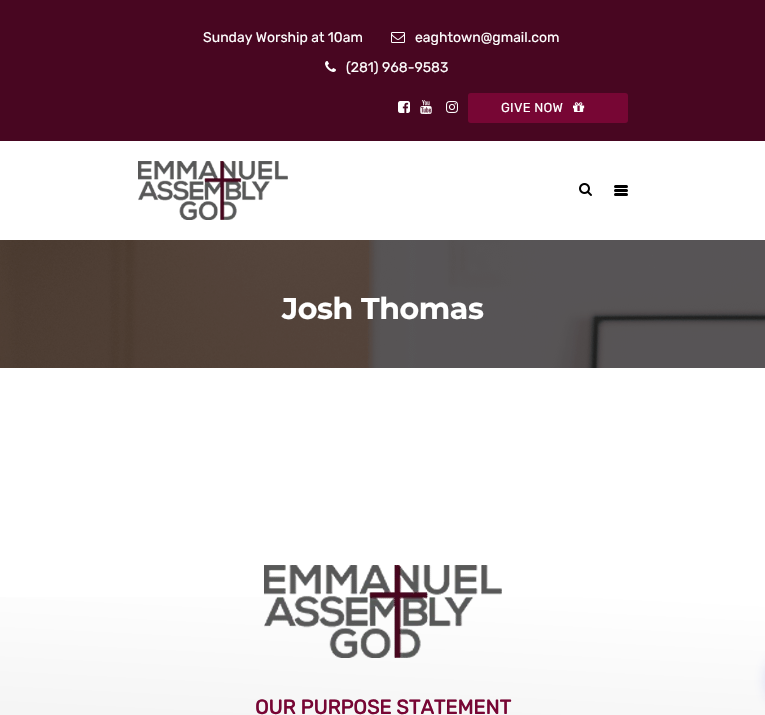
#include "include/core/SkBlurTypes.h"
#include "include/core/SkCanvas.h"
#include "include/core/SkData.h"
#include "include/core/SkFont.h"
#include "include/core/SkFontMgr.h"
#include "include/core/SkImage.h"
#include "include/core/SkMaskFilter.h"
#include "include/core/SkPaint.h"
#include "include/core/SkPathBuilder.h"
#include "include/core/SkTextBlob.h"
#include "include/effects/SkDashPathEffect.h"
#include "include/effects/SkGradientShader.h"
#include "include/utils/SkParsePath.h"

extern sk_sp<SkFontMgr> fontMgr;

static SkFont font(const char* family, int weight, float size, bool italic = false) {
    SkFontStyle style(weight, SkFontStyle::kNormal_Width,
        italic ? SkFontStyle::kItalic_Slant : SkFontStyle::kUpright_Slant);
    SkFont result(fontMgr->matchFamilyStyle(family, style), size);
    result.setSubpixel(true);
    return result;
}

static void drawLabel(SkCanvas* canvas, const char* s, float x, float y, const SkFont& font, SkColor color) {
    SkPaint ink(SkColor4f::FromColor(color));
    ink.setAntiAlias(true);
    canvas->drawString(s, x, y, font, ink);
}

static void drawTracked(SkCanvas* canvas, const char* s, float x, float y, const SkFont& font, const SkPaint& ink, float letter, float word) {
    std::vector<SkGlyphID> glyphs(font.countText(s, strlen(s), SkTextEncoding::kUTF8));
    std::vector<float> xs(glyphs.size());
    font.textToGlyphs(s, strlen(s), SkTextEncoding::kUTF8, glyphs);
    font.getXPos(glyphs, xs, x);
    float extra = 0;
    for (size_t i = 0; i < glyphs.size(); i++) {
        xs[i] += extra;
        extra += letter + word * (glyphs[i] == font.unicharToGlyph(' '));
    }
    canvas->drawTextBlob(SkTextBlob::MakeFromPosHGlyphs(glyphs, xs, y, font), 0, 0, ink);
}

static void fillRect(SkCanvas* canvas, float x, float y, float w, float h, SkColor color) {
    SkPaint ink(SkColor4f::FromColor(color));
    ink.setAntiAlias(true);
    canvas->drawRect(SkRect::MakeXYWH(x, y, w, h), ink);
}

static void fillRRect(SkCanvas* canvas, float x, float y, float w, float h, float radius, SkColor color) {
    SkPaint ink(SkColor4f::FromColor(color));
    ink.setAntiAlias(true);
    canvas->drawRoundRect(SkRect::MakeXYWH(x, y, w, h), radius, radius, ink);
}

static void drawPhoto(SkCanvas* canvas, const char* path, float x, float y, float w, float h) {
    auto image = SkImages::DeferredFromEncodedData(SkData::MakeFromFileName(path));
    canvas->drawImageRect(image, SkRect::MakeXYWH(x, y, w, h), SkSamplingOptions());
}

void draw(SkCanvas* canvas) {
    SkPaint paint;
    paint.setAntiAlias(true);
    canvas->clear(0xFFFFFFFF);
    fillRect(canvas, 0, 0, 765, 141, 0xFF480621);
    SkFont font1 = font("Rubik", 300, 14);
    drawLabel(canvas, "Sunday Worship at 10am", 203, 42, font1, 0xFFFFFFFF);
    drawPhoto(canvas, "assets/img1.png", 391, 32, 14, 11);
    drawLabel(canvas, "eaghtown@gmail.com", 415, 42, font1, 0xFFFFFFFF);
    drawPhoto(canvas, "assets/img2.png", 325, 61, 11, 11);
    drawLabel(canvas, "(281) 968-9583", 346, 72, font1, 0xFFFFFFFF);
    drawPhoto(canvas, "assets/img3.png", 398, 101, 12, 12);
    drawPhoto(canvas, "assets/img4.png", 420, 100, 12, 14);
    drawPhoto(canvas, "assets/img5.png", 446, 101, 12, 12);
    fillRRect(canvas, 468, 93, 160, 30, 3, 0xFF770634);
    SkFont font2 = font("Rubik", 300, 13);
    paint.setColor(0xFFFFFFFF);
    drawTracked(canvas, "GIVE NOW", 501, 112, font2, paint, 0.25f, 0);
    drawPhoto(canvas, "assets/img6.png", 573, 102, 12, 10);
    drawPhoto(canvas, "assets/img7.png", 138, 161, 150, 59);
    drawPhoto(canvas, "assets/img8.png", 579, 183, 13, 13);
    fillRRect(canvas, 614, 189, 14, 3, 1.5f, 0xFF000000);
    fillRRect(canvas, 614, 185, 14, 3, 1.5f, 0xFF000000);
    fillRRect(canvas, 614, 193, 14, 3, 1.5f, 0xFF000000);
    drawPhoto(canvas, "assets/img9.png", 0, 240, 765, 128);
    SkFont font3 = font("Montserrat", 700, 30);
    drawTracked(canvas, "Josh Thomas", 282, 319, font3, paint, -0.4f, 0);
    {
        const SkColor colors[] = {0xFFD8D8D8, 0xFFFFFFFF};
        const float stops[] = {0, 0.84f};
        const SkPoint ends[] = {{365, 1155}, {400, 471}};
        paint.setShader(SkGradientShader::MakeLinear(ends, colors, stops, 2, SkTileMode::kClamp));
        paint.setAlpha(255);
    }
    canvas->drawRect(SkRect::MakeXYWH(0, 597, 765, 118), paint);
    drawPhoto(canvas, "assets/img10.png", 264, 565, 238, 93);
    SkFont font4 = font("Rubik", 700, 20);
    drawLabel(canvas, "OUR PURPOSE STATEMENT", 255, 714, font4, 0xFF770634);
    paint.setShader(nullptr);
    paint.setColor(0xE66B74E6);
    paint.setMaskFilter(SkMaskFilter::MakeBlur(kNormal_SkBlurStyle, 10));
    canvas->drawRoundRect(SkRect::MakeXYWH(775, 660, 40, 40), 20, 20, paint);
    paint.setMaskFilter(nullptr);
}
